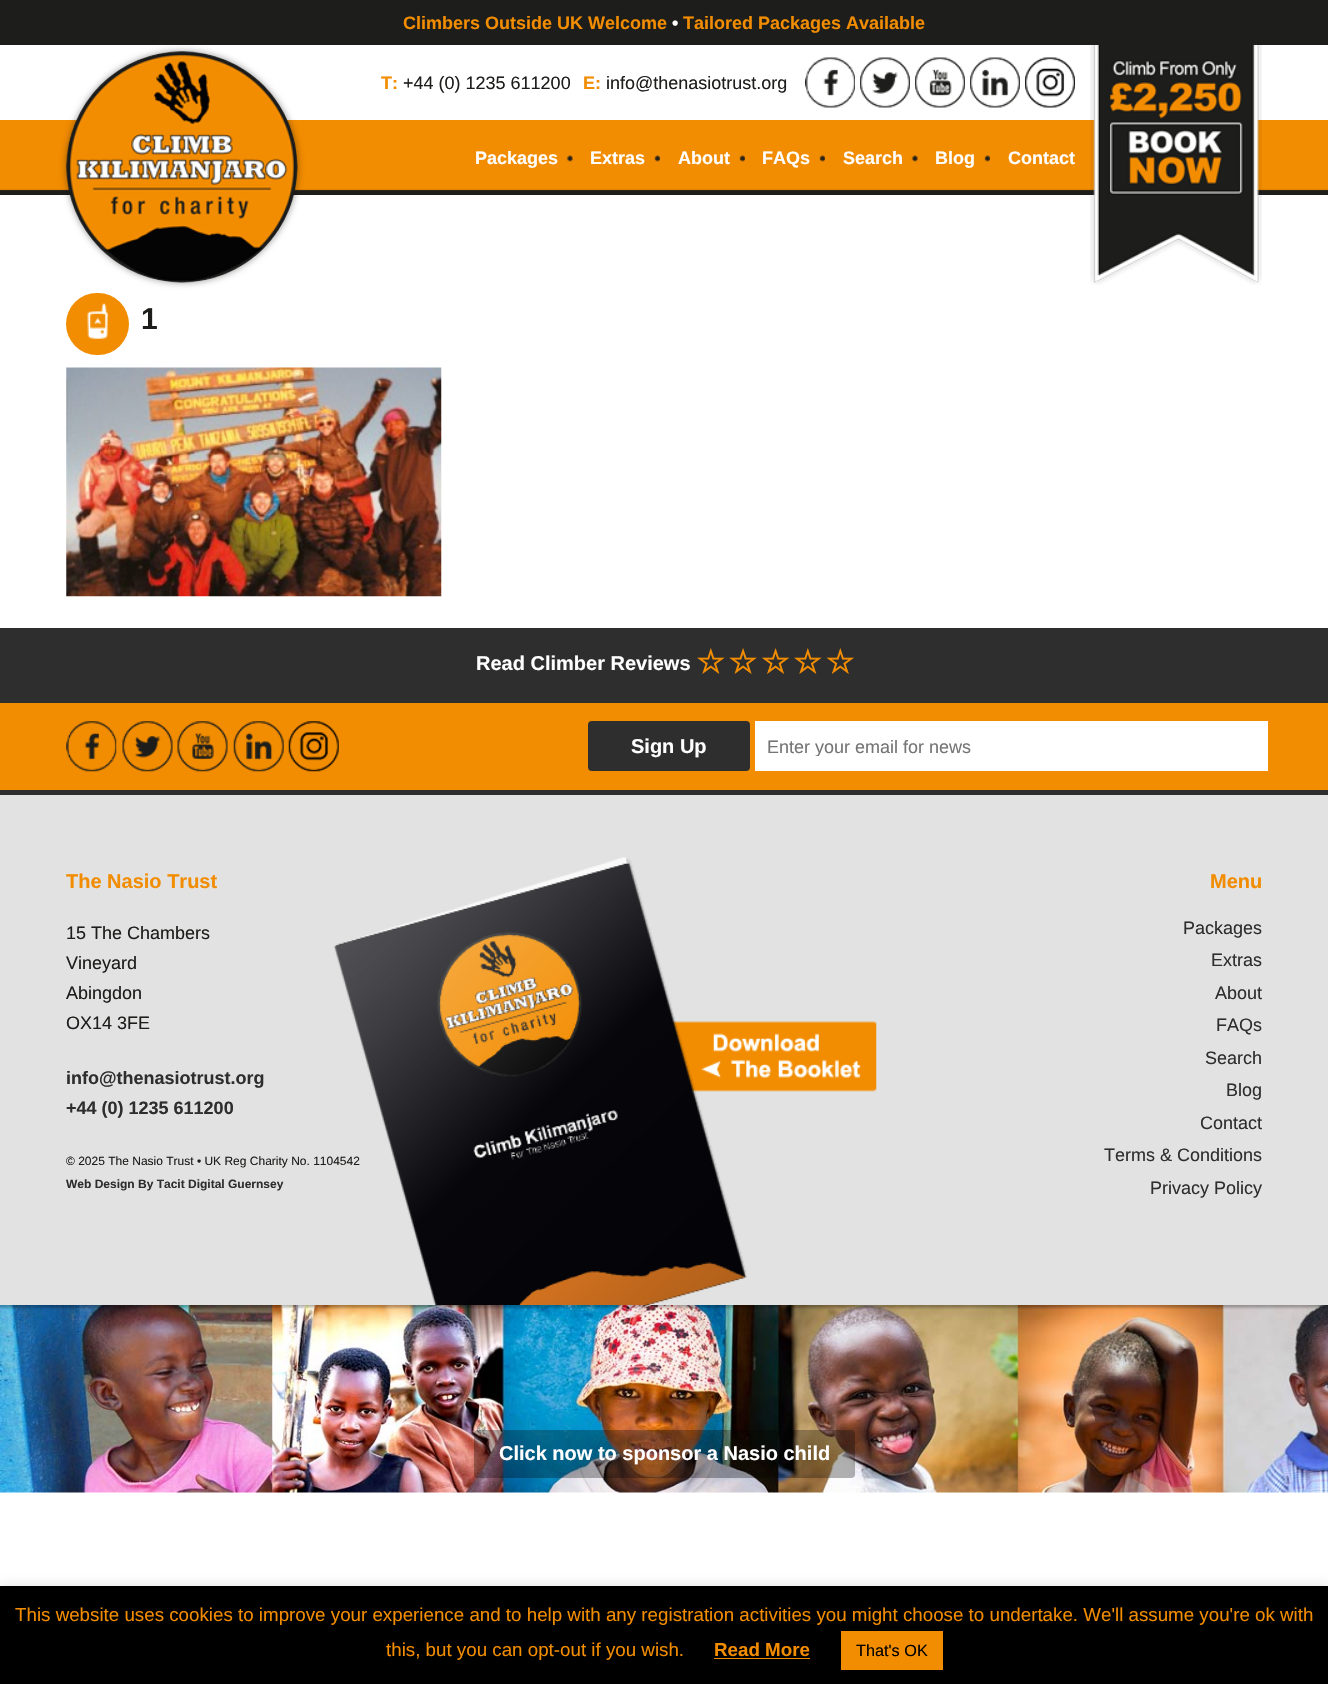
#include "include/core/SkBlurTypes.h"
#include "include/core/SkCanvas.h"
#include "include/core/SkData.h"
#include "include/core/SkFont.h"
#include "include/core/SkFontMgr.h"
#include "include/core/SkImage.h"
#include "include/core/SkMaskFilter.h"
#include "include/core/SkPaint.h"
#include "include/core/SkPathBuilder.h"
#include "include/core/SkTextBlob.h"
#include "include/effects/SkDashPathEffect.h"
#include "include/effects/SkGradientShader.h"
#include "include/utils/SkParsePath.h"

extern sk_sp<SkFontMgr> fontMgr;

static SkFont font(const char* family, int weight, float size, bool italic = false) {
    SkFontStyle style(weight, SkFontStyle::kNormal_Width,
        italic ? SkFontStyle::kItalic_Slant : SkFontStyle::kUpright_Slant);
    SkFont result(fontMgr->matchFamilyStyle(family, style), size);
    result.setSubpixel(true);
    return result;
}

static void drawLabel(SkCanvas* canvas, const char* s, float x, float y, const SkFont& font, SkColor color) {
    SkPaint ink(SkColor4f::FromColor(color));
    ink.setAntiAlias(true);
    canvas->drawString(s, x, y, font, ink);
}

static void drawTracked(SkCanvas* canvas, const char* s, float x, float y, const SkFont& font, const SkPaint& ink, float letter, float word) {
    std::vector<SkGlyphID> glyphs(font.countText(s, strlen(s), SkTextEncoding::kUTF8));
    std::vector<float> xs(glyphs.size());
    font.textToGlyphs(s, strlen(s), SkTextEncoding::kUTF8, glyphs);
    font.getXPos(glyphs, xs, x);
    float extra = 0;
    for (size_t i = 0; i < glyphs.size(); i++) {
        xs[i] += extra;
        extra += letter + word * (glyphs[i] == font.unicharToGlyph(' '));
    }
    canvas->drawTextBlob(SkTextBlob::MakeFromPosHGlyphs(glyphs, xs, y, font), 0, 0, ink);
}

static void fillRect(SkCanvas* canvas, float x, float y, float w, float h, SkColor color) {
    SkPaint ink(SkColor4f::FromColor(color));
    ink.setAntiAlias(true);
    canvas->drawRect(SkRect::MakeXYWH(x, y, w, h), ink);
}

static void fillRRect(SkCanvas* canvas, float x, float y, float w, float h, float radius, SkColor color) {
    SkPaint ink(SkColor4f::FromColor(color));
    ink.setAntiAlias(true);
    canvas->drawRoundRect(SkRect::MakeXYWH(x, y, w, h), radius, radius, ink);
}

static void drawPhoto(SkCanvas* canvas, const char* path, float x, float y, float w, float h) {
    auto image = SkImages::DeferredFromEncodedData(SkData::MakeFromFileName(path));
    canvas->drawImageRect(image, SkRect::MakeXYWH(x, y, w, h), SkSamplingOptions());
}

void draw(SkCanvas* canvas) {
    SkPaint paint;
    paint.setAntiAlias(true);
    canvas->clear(0xFFFFFFFF);
    fillRect(canvas, 0, 0, 1328, 45, 0xFF1D1D1B);
    SkFont font1 = font("Liberation Sans", 700, 18);
    drawLabel(canvas, "Climbers Outside UK Welcome", 403, 29, font1, 0xFFF28C00);
    drawLabel(canvas, "•", 672, 29, font1, 0xFFFFFFFF);
    drawLabel(canvas, "Tailored Packages Available", 683, 29, font1, 0xFFF28C00);
    drawPhoto(canvas, "assets/img1.png", 0, 120, 1328, 75);
    paint.setColor(0x59000000);
    paint.setMaskFilter(SkMaskFilter::MakeBlur(kNormal_SkBlurStyle, 3));
    canvas->drawRoundRect(SkRect::MakeXYWH(66, 51, 232, 232), 116, 116, paint);
    paint.setMaskFilter(nullptr);
    drawPhoto(canvas, "assets/img2.png", 66, 51, 232, 232);
    drawLabel(canvas, "T:", 381, 89, font1, 0xFFF28C00);
    SkFont font2 = font("Liberation Sans", 400, 18);
    drawLabel(canvas, "+44 (0) 1235 611200", 403, 89, font2, 0xFF1D1D1B);
    drawLabel(canvas, "E:", 583, 89, font1, 0xFFF28C00);
    drawLabel(canvas, "info@thenasiotrust.org", 606, 89, font2, 0xFF1D1D1B);
    drawPhoto(canvas, "assets/img3.png", 805, 57, 50, 51);
    drawPhoto(canvas, "assets/img4.png", 860, 57, 50, 51);
    drawPhoto(canvas, "assets/img5.png", 915, 57, 50, 51);
    drawPhoto(canvas, "assets/img6.png", 970, 57, 50, 51);
    drawPhoto(canvas, "assets/img7.png", 1025, 57, 50, 51);
    drawPhoto(canvas, "assets/img8.png", 1090, 45, 172, 240);
    drawPhoto(canvas, "assets/img9.png", 566, 155, 7, 7);
    drawLabel(canvas, "Packages", 475, 164, font1, 0xFFFFFFFF);
    drawPhoto(canvas, "assets/img10.png", 654, 155, 6, 7);
    drawLabel(canvas, "Extras", 590, 164, font1, 0xFFFFFFFF);
    drawPhoto(canvas, "assets/img10.png", 739, 155, 6, 7);
    drawLabel(canvas, "About", 678, 164, font1, 0xFFFFFFFF);
    drawPhoto(canvas, "assets/img10.png", 819, 155, 6, 7);
    drawLabel(canvas, "FAQs", 762, 164, font1, 0xFFFFFFFF);
    drawPhoto(canvas, "assets/img9.png", 911, 155, 7, 7);
    drawLabel(canvas, "Search", 843, 164, font1, 0xFFFFFFFF);
    drawPhoto(canvas, "assets/img10.png", 984, 155, 6, 7);
    drawLabel(canvas, "Blog", 935, 164, font1, 0xFFFFFFFF);
    drawLabel(canvas, "Contact", 1008, 164, font1, 0xFFFFFFFF);
    fillRRect(canvas, 66, 293, 63, 62, 31, 0xFFF28C00);
    drawPhoto(canvas, "assets/img11.png", 87, 303, 22, 36);
    SkFont font3 = font("Liberation Sans", 700, 30);
    drawLabel(canvas, "1", 141, 329, font3, 0xFF1D1D1B);
    drawPhoto(canvas, "assets/img12.png", 66, 367, 376, 230);
    fillRect(canvas, 0, 628, 1328, 75, 0xFF2E2E2E);
    SkFont font4 = font("Liberation Sans", 700, 20);
    drawLabel(canvas, "Read Climber Reviews", 476, 670, font4, 0xFFFFFFFF);
    SkFont font5 = font("DejaVu Sans", 700, 32);
    paint.setColor(0xFFF28C00);
    drawTracked(canvas, "☆ ☆ ☆ ☆ ☆", 696, 673, font5, paint, -2.5f, -1.5f);
    fillRect(canvas, 0, 703, 1328, 87, 0xFFF28C00);
    fillRect(canvas, 0, 790, 1328, 5, 0xFF2E2E2E);
    drawPhoto(canvas, "assets/img13.png", 66, 721, 51, 51);
    drawPhoto(canvas, "assets/img14.png", 122, 721, 51, 51);
    drawPhoto(canvas, "assets/img15.png", 177, 721, 51, 51);
    drawPhoto(canvas, "assets/img16.png", 233, 721, 51, 51);
    drawPhoto(canvas, "assets/img17.png", 288, 721, 51, 51);
    fillRRect(canvas, 588, 721, 162, 50, 4, 0xFF2E2E2E);
    drawLabel(canvas, "Sign Up", 631, 753, font4, 0xFFFFFFFF);
    fillRect(canvas, 755, 721, 513, 50, 0xFFFFFFFF);
    canvas->save();
    canvas->clipRect(SkRect::MakeXYWH(768, 736, 500, 20));
    drawLabel(canvas, "Enter your email for news", 767, 753, font2, 0xFF757575);
    canvas->restore();
    fillRect(canvas, 0, 795, 1328, 510, 0xFFE2E2E2);
    drawLabel(canvas, "The Nasio Trust", 66, 888, font4, 0xFFF28C00);
    drawLabel(canvas, "15 The Chambers", 66, 939, font2, 0xFF1D1D1B);
    drawLabel(canvas, "Vineyard", 66, 969, font2, 0xFF1D1D1B);
    drawLabel(canvas, "Abingdon", 66, 999, font2, 0xFF1D1D1B);
    drawLabel(canvas, "OX14 3FE", 66, 1029, font2, 0xFF1D1D1B);
    drawLabel(canvas, "info@thenasiotrust.org", 66, 1084, font1, 0xFF2E2E2E);
    drawLabel(canvas, "+44 (0) 1235 611200", 66, 1114, font1, 0xFF2E2E2E);
    SkFont font6 = font("Liberation Sans", 400, 12);
    drawLabel(canvas, "© 2025 The Nasio Trust • UK Reg Charity No. 1104542", 66, 1165, font6, 0xFF1D1D1B);
    SkFont font7 = font("Liberation Sans", 700, 12);
    drawLabel(canvas, "Web Design By Tacit Digital Guernsey", 66, 1188, font7, 0xFF2E2E2E);
    drawPhoto(canvas, "assets/img18.png", 333, 856, 544, 449);
    drawLabel(canvas, "Menu", 1210, 888, font4, 0xFFF28C00);
    drawLabel(canvas, "Packages", 1183, 934, font2, 0xFF2E2E2E);
    drawLabel(canvas, "Extras", 1211, 966, font2, 0xFF2E2E2E);
    drawLabel(canvas, "About", 1215, 999, font2, 0xFF2E2E2E);
    drawLabel(canvas, "FAQs", 1216, 1031, font2, 0xFF2E2E2E);
    drawLabel(canvas, "Search", 1205, 1064, font2, 0xFF2E2E2E);
    drawLabel(canvas, "Blog", 1226, 1096, font2, 0xFF2E2E2E);
    drawLabel(canvas, "Contact", 1200, 1129, font2, 0xFF2E2E2E);
    drawLabel(canvas, "Terms & Conditions", 1104, 1161, font2, 0xFF2E2E2E);
    drawLabel(canvas, "Privacy Policy", 1150, 1194, font2, 0xFF2E2E2E);
    drawPhoto(canvas, "assets/img19.png", 0, 1305, 1328, 188);
    fillRRect(canvas, 474, 1430, 381, 48, 4, 0x4D000000);
    drawLabel(canvas, "Click now to sponsor a Nasio child", 499, 1460, font4, 0xFFFFFFFF);
    paint.setColor(0x4DACABAB);
    paint.setMaskFilter(SkMaskFilter::MakeBlur(kNormal_SkBlurStyle, 6));
    canvas->drawRect(SkRect::MakeXYWH(0, 1585, 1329, 99), paint);
    paint.setMaskFilter(nullptr);
    fillRect(canvas, 0, 1586, 1328, 98, 0xFF000000);
    SkFont font8 = font("Liberation Sans", 400, 18.75f);
    drawLabel(canvas, "This website uses cookies to improve your experience and to help with any registration activities you might choose to undertake. We'll assume you're ok with", 15, 1621, font8, 0xFFF28C00);
    drawLabel(canvas, "this, but you can opt-out if you wish.", 386, 1656, font8, 0xFFF28C00);
    SkFont font9 = font("Liberation Sans", 700, 18.75f);
    drawLabel(canvas, "Read More", 714, 1656, font9, 0xFFF28C00);
    fillRect(canvas, 714, 1658, 96, 1, 0xFFF28C00);
    fillRect(canvas, 841, 1631, 102, 39, 0xFFF28C00);
    SkFont font10 = font("Liberation Sans", 400, 16.25f);
    drawLabel(canvas, "That's OK", 856, 1656, font10, 0xFF000000);
}
